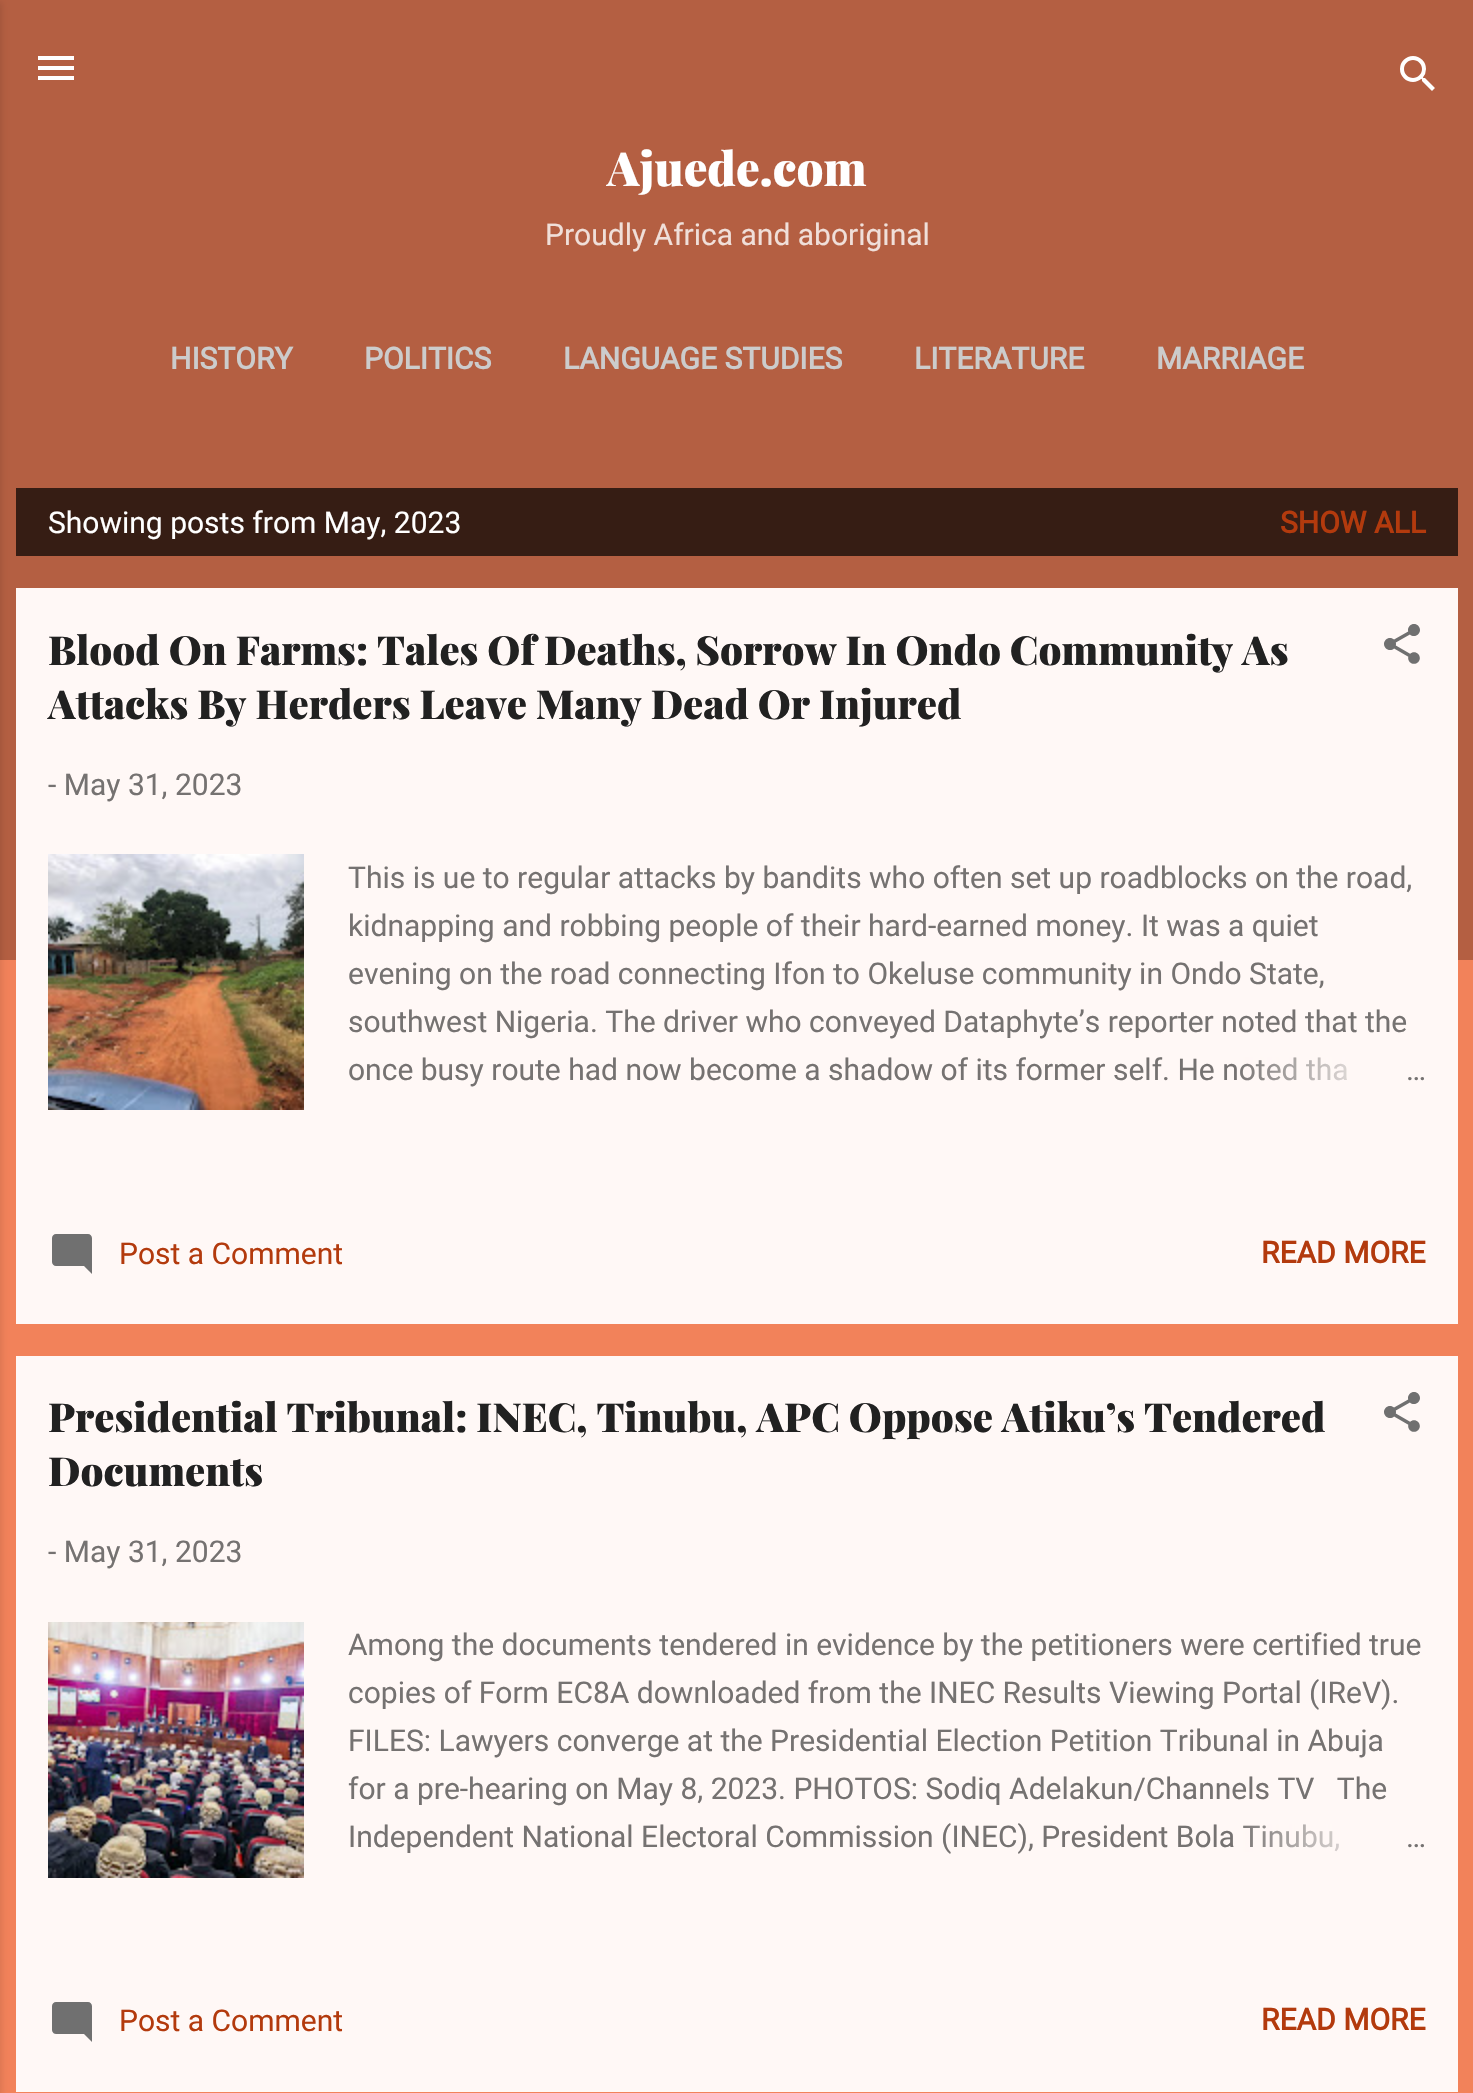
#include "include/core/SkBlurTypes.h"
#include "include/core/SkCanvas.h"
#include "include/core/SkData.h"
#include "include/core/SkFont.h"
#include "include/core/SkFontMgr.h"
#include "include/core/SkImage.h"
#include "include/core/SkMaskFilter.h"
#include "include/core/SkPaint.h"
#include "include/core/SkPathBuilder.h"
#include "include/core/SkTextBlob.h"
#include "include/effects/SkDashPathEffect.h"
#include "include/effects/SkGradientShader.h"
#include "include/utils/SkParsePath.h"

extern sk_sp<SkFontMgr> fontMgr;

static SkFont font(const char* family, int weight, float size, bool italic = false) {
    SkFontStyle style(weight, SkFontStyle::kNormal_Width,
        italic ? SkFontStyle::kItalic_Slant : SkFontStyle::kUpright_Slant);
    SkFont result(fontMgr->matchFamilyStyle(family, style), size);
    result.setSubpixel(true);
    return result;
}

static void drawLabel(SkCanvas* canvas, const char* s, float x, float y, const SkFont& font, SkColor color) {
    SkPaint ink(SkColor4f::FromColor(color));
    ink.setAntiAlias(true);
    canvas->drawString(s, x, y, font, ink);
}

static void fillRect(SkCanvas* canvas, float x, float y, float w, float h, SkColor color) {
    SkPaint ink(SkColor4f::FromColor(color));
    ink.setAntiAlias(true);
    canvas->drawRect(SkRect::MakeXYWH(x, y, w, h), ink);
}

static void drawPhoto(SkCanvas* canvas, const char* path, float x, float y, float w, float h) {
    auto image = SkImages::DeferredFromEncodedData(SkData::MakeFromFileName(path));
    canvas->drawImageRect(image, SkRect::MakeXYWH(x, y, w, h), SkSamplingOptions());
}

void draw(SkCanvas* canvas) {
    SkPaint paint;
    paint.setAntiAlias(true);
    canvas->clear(0xFFF2825A);
    fillRect(canvas, 0, 0, 1473, 960, 0xFFB45F42);
    paint.setColor(0x1A000000);
    paint.setMaskFilter(SkMaskFilter::MakeBlur(kNormal_SkBlurStyle, 3));
    canvas->drawRect(SkRect::MakeXYWH(-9, 2, 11, 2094), paint);
    paint.setMaskFilter(nullptr);
    drawPhoto(canvas, "assets/img1.png", 38, 56, 36, 24);
    drawPhoto(canvas, "assets/img2.png", 1400, 56, 35, 35);
    SkFont font1 = font("Playfair Display", 900, 47);
    drawLabel(canvas, "Ajuede.com", 607, 186, font1, 0xFFFFFFFF);
    SkFont font2 = font("Roboto", 400, 30);
    drawLabel(canvas, "Proudly Africa and aboriginal", 545, 245, font2, 0xFFF0DFD9);
    SkFont font3 = font("Roboto", 700, 30);
    drawLabel(canvas, "HISTORY", 170, 369, font3, 0xFFCCCCCC);
    drawLabel(canvas, "POLITICS", 364, 369, font3, 0xFFCCCCCC);
    drawLabel(canvas, "LANGUAGE STUDIES", 563, 369, font3, 0xFFCCCCCC);
    drawLabel(canvas, "LITERATURE", 914, 369, font3, 0xFFCCCCCC);
    drawLabel(canvas, "MARRIAGE", 1156, 369, font3, 0xFFCCCCCC);
    fillRect(canvas, 16, 488, 1442, 68, 0xFF361D14);
    drawLabel(canvas, "Showing posts from May, 2023", 48, 533, font2, 0xFFFFFFFF);
    drawLabel(canvas, "SHOW ALL", 1280, 533, font3, 0xFFB33A0D);
    fillRect(canvas, 16, 588, 1442, 736, 0xFFFFF8F6);
    SkFont font4 = font("Playfair Display", 900, 40);
    drawLabel(canvas, "Blood On Farms: Tales Of Deaths, Sorrow In Ondo Community As", 48, 665, font4, 0xFF212121);
    drawLabel(canvas, "Attacks By Herders Leave Many Dead Or Injured", 48, 719, font4, 0xFF212121);
    drawPhoto(canvas, "assets/img3.png", 1384, 624, 36, 40);
    drawLabel(canvas, "- May 31, 2023", 48, 795, font2, 0xFF757271);
    drawPhoto(canvas, "assets/img4.png", 48, 854, 256, 256);
    drawLabel(canvas, "This is ue to regular attacks by bandits who often set up roadblocks on the road,", 348, 888, font2, 0xFF757271);
    drawLabel(canvas, "kidnapping and robbing people of their hard-earned money. It was a quiet", 348, 936, font2, 0xFF757271);
    drawLabel(canvas, "evening on the road connecting Ifon to Okeluse community in Ondo State,", 348, 984, font2, 0xFF757271);
    drawLabel(canvas, "southwest Nigeria. The driver who conveyed Dataphyte’s reporter noted that the", 348, 1032, font2, 0xFF757271);
    drawLabel(canvas, "once busy route had now become a shadow of its former self. He noted tha", 348, 1080, font2, 0xFF757271);
    {
        const SkColor colors[] = {0xFFFFF8F6, 0xFFFFF8F6, 0x00FFF8F6};
        const float stops[] = {0, 0.2f, 1};
        const SkPoint ends[] = {{1426, 1070}, {1234, 1070}};
        paint.setShader(SkGradientShader::MakeLinear(ends, colors, stops, 3, SkTileMode::kClamp));
        paint.setAlpha(255);
    }
    canvas->drawRect(SkRect::MakeXYWH(1240, 1057, 108, 24), paint);
    drawLabel(canvas, "…", 1406, 1080, font2, 0xFF757271);
    drawPhoto(canvas, "assets/img5.png", 52, 1234, 40, 40);
    drawLabel(canvas, "Post a Comment", 119, 1264, font2, 0xFFB33A0D);
    drawLabel(canvas, "READ MORE", 1261, 1263, font3, 0xFFB33A0D);
    fillRect(canvas, 16, 1356, 1442, 736, 0xFFFFF8F6);
    drawLabel(canvas, "Presidential Tribunal: INEC, Tinubu, APC Oppose Atiku’s Tendered", 48, 1432, font4, 0xFF212121);
    drawLabel(canvas, "Documents", 48, 1486, font4, 0xFF212121);
    drawPhoto(canvas, "assets/img3.png", 1384, 1392, 36, 40);
    drawLabel(canvas, "- May 31, 2023", 48, 1562, font2, 0xFF757271);
    drawPhoto(canvas, "assets/img6.png", 48, 1622, 256, 256);
    drawLabel(canvas, "Among the documents tendered in evidence by the petitioners were certified true", 348, 1655, font2, 0xFF757271);
    drawLabel(canvas, "copies of Form EC8A downloaded from the INEC Results Viewing Portal (IReV).", 348, 1703, font2, 0xFF757271);
    drawLabel(canvas, "FILES: Lawyers converge at the Presidential Election Petition Tribunal in Abuja", 348, 1751, font2, 0xFF757271);
    drawLabel(canvas, "for a pre-hearing on May 8, 2023. PHOTOS: Sodiq Adelakun/Channels TV   The", 348, 1799, font2, 0xFF757271);
    drawLabel(canvas, "Independent National Electoral Commission (INEC), President Bola Tinubu,", 348, 1847, font2, 0xFF757271);
    {
        const SkColor colors[] = {0xFFFFF8F6, 0xFFFFF8F6, 0x00FFF8F6};
        const float stops[] = {0, 0.2f, 1};
        const SkPoint ends[] = {{1426, 1838}, {1234, 1838}};
        paint.setShader(SkGradientShader::MakeLinear(ends, colors, stops, 3, SkTileMode::kClamp));
        paint.setAlpha(255);
    }
    canvas->drawRect(SkRect::MakeXYWH(1243, 1824, 96, 28), paint);
    drawLabel(canvas, "…", 1406, 1847, font2, 0xFF757271);
    drawPhoto(canvas, "assets/img7.png", 52, 2002, 40, 40);
    drawLabel(canvas, "Post a Comment", 119, 2031, font2, 0xFFB33A0D);
    drawLabel(canvas, "READ MORE", 1261, 2030, font3, 0xFFB33A0D);
}
